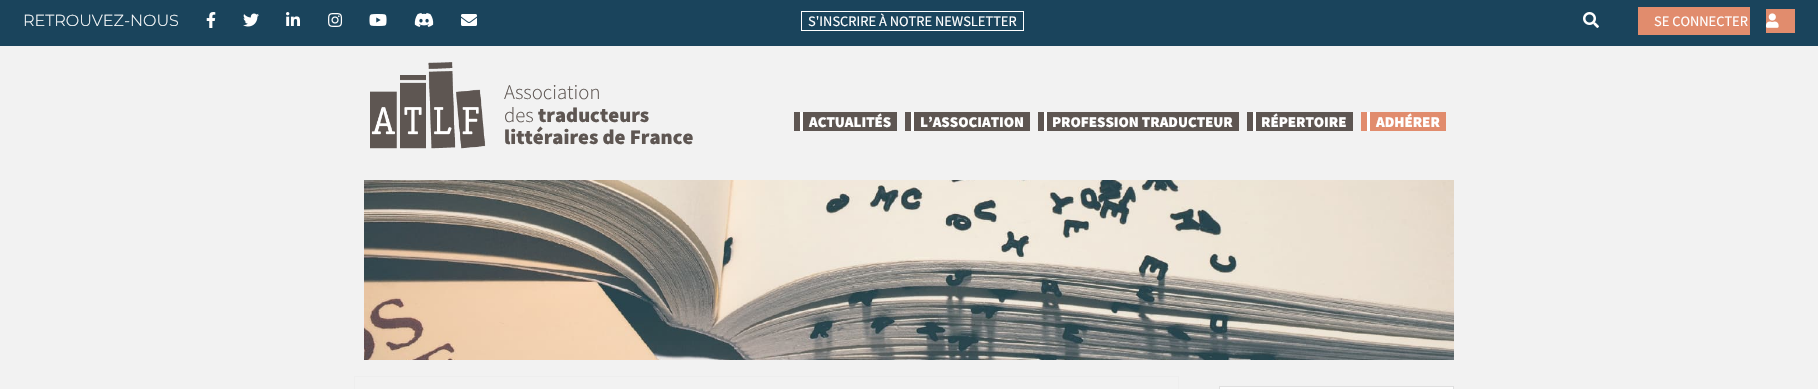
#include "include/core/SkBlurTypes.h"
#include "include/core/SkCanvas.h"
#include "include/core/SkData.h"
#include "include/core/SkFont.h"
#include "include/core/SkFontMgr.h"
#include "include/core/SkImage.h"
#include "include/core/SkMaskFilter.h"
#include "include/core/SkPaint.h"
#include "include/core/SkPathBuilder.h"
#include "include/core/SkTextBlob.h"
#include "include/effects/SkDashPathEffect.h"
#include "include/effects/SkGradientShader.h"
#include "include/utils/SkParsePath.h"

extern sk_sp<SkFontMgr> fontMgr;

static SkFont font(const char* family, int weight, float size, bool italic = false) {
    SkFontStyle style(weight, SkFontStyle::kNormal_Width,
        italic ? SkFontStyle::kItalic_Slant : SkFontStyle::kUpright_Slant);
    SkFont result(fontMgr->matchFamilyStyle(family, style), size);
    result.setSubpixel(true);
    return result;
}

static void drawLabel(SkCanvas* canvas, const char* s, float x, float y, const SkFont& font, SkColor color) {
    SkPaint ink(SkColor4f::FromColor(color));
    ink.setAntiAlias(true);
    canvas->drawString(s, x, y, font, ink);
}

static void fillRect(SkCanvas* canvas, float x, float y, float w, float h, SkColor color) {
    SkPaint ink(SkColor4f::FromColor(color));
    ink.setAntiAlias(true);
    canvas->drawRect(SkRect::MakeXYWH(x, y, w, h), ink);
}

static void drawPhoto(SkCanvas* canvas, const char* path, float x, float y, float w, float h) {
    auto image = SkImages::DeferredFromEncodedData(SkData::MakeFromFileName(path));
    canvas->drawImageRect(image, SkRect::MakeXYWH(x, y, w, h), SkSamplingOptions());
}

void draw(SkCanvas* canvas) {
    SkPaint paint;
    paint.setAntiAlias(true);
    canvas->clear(0xFFF2F2F2);
    fillRect(canvas, 0, 0, 1818, 46, 0xFF1A445C);
    SkFont font1 = font("Montserrat", 300, 16);
    drawLabel(canvas, "RETROUVEZ-NOUS", 23, 26, font1, 0xFFFFFFFF);
    drawPhoto(canvas, "assets/img1.png", 206, 12, 10, 16);
    drawPhoto(canvas, "assets/img2.png", 243, 13, 16, 14);
    drawPhoto(canvas, "assets/img3.png", 286, 12, 14, 14);
    drawPhoto(canvas, "assets/img4.png", 328, 13, 15, 14);
    drawPhoto(canvas, "assets/img5.png", 369, 14, 18, 12);
    drawPhoto(canvas, "assets/img6.png", 414, 13, 20, 14);
    drawPhoto(canvas, "assets/img7.png", 461, 14, 16, 12);
    paint.setStroke(true);
    paint.setStrokeWidth(1);
    paint.setColor(0xFFFFFFFF);
    canvas->drawRect(SkRect::MakeXYWH(801.5f, 11.5f, 222, 19), paint);
    SkFont font2 = font("Source Sans Pro", 400, 14.4f);
    drawLabel(canvas, "S'INSCRIRE À NOTRE NEWSLETTER", 808, 26, font2, 0xFFFFFFFF);
    drawPhoto(canvas, "assets/img8.png", 1583, 12, 16, 16);
    fillRect(canvas, 1638, 7, 112, 28, 0xFFE18C6D);
    fillRect(canvas, 1766, 9, 29, 24, 0xFFE18C6D);
    drawLabel(canvas, "SE CONNECTER", 1654, 26, font2, 0xFFFFFFFF);
    drawPhoto(canvas, "assets/img9.png", 1766, 13, 13, 15);
    drawPhoto(canvas, "assets/img10.png", 370, 62, 116, 87);
    SkFont font3 = font("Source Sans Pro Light", 300, 20.75f);
    drawLabel(canvas, "Association", 504, 99, font3, 0xFF5E5652);
    drawLabel(canvas, "des", 504, 122, font3, 0xFF5E5652);
    SkFont font4 = font("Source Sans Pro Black", 900, 20.75f);
    drawLabel(canvas, "traducteurs", 538, 122, font4, 0xFF5E5652);
    drawLabel(canvas, "littéraires de France", 504, 144, font4, 0xFF5E5652);
    fillRect(canvas, 794, 112, 103, 19, 0xFF5E5652);
    fillRect(canvas, 800, 112, 3, 19, 0xFFFFFFFF);
    SkFont font5 = font("Source Sans Pro Black", 900, 14.9f);
    drawLabel(canvas, "ACTUALITÉS", 809, 127, font5, 0xFFFFFFFF);
    fillRect(canvas, 905, 112, 125, 19, 0xFF5E5652);
    fillRect(canvas, 911, 112, 3, 19, 0xFFFFFFFF);
    drawLabel(canvas, "L’ASSOCIATION", 920, 127, font5, 0xFFFFFFFF);
    fillRect(canvas, 1038, 112, 201, 19, 0xFF5E5652);
    fillRect(canvas, 1044, 112, 3, 19, 0xFFFFFFFF);
    drawLabel(canvas, "PROFESSION TRADUCTEUR", 1052, 127, font5, 0xFFFFFFFF);
    fillRect(canvas, 1247, 112, 106, 19, 0xFF5E5652);
    fillRect(canvas, 1253, 112, 3, 19, 0xFFFFFFFF);
    drawLabel(canvas, "RÉPERTOIRE", 1261, 127, font5, 0xFFFFFFFF);
    fillRect(canvas, 1361, 112, 85, 19, 0xFFE18C6D);
    fillRect(canvas, 1367, 112, 3, 19, 0xFFFFFFFF);
    drawLabel(canvas, "ADHÉRER", 1376, 127, font5, 0xFFFFFFFF);
    drawPhoto(canvas, "assets/img11.png", 364, 180, 1090, 180);
    paint.setColor(0xFFEEEEEE);
    canvas->drawRect(SkRect::MakeXYWH(354.5f, 376.5f, 824, 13), paint);
    paint.setStroke(false);
    paint.setColor(0xFFFFFFFF);
    canvas->drawRect(SkRect::MakeXYWH(1219.5f, 386.5f, 234, 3), paint);
    paint.setStroke(true);
    paint.setColor(0xFFDFDFDF);
    canvas->drawRect(SkRect::MakeXYWH(1219.5f, 386.5f, 234, 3), paint);
}
